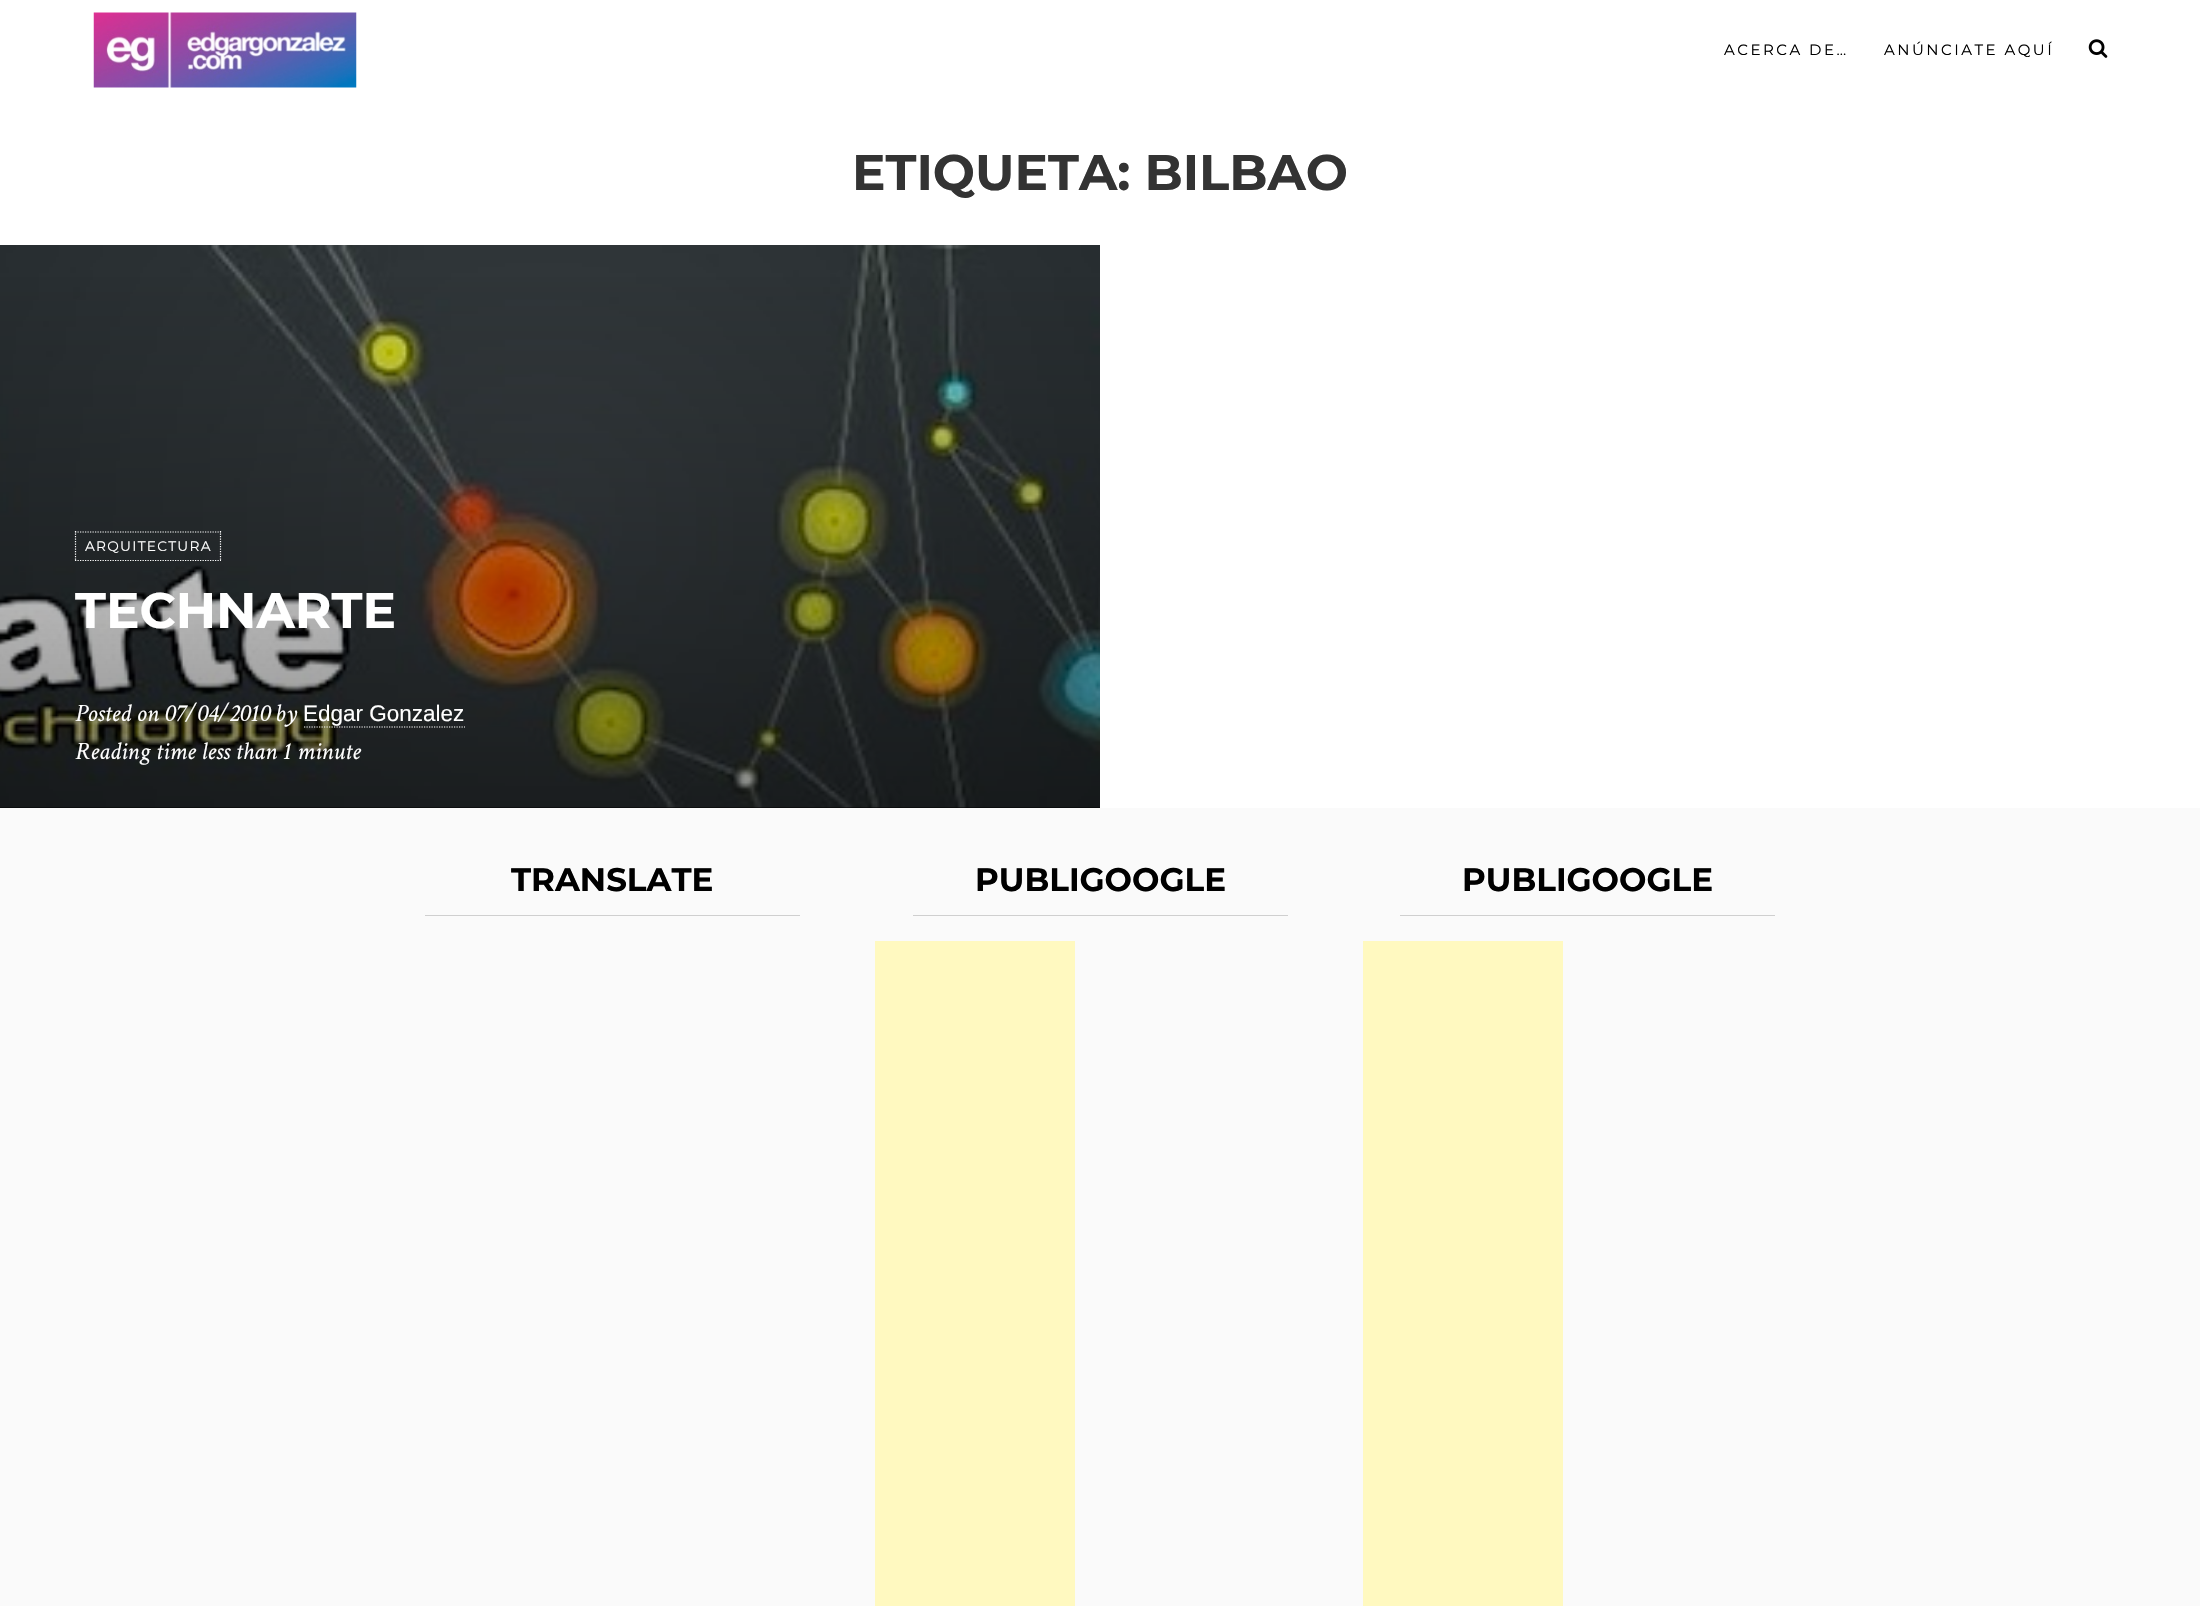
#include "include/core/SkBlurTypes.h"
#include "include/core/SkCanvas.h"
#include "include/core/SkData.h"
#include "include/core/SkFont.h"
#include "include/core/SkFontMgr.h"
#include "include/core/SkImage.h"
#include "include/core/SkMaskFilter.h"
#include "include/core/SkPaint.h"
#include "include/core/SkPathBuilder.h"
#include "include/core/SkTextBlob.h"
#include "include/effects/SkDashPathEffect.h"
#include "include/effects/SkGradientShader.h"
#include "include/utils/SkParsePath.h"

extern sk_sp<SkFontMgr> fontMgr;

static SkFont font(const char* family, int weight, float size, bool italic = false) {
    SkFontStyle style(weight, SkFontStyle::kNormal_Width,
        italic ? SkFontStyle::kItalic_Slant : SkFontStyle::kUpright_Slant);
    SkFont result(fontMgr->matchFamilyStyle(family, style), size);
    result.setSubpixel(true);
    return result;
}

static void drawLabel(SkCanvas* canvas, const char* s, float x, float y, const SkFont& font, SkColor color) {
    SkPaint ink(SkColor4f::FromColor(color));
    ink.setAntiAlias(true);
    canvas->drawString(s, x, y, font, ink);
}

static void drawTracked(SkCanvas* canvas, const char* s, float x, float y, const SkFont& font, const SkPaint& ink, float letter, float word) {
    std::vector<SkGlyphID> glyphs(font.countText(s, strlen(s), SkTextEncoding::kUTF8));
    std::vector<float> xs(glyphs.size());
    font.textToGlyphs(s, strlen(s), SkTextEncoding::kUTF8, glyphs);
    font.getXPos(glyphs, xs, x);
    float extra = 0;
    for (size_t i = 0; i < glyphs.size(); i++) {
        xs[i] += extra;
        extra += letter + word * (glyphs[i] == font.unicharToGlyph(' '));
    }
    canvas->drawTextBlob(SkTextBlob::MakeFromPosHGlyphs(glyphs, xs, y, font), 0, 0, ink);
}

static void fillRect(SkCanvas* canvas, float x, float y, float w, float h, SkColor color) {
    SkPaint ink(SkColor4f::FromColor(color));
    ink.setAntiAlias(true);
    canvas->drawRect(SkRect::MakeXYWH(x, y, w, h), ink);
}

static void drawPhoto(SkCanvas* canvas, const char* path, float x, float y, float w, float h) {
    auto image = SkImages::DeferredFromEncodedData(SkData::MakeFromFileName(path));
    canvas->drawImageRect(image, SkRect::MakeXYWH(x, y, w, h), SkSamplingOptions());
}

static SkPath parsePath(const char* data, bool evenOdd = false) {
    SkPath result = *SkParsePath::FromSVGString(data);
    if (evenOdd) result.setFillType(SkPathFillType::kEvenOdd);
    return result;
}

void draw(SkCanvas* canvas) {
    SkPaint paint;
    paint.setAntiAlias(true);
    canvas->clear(0xFFFFFFFF);
    drawPhoto(canvas, "assets/img1.png", 93, 12, 264, 76);
    SkFont font1 = font("Montserrat", 400, 15);
    paint.setColor(0xFF000000);
    drawTracked(canvas, "ACERCA DE…", 1724, 55, font1, paint, 2.5f, 0);
    drawTracked(canvas, "ANÚNCIATE AQUÍ", 1884, 55, font1, paint, 2.5f, 0);
    drawPhoto(canvas, "assets/img2.png", 2088, 39, 20, 19);
    SkFont font2 = font("Montserrat", 700, 50);
    drawLabel(canvas, "ETIQUETA: BILBAO", 852, 190, font2, 0xFF333333);
    fillRect(canvas, 0, 807, 1100, 1, 0xFF000000);
    drawPhoto(canvas, "assets/img3.png", 0, 245, 1100, 563);
    {
        const SkColor colors[] = {0x00000000, 0x73000000};
        const float stops[] = {0, 1};
        const SkPoint ends[] = {{550, 245}, {550, 808}};
        paint.setShader(SkGradientShader::MakeLinear(ends, colors, stops, 2, SkTileMode::kClamp));
        paint.setAlpha(255);
    }
    canvas->drawRect(SkRect::MakeXYWH(0, 277, 1100, 531), paint);
    SkFont font3 = font("Montserrat", 400, 13.75f);
    paint.setShader(nullptr);
    paint.setColor(0xFFFFFFFF);
    drawTracked(canvas, "ARQUITECTURA", 85, 551, font3, paint, 1.25f, 0);
    paint.setStroke(true);
    paint.setStrokeWidth(1.2f);
    paint.setPathEffect(SkDashPathEffect::Make({{1.25f, 1.25f}}, 0));
    canvas->drawPath(parsePath("M75 532H221"), paint);
    paint.setPathEffect(nullptr);
    paint.setPathEffect(SkDashPathEffect::Make({{1.25f, 1.25f}}, 0));
    canvas->drawPath(parsePath("M220.5 531V561"), paint);
    paint.setPathEffect(nullptr);
    paint.setPathEffect(SkDashPathEffect::Make({{1.25f, 1.25f}}, 0));
    canvas->drawPath(parsePath("M75 560.5H221"), paint);
    paint.setPathEffect(nullptr);
    paint.setPathEffect(SkDashPathEffect::Make({{1.25f, 1.25f}}, 0));
    canvas->drawPath(parsePath("M75.5 531V561"), paint);
    paint.setPathEffect(nullptr);
    drawLabel(canvas, "TECHNARTE", 75, 628, font2, 0xFFFFFFFF);
    SkFont font4 = font("Crimson Text", 400, 25, true);
    drawLabel(canvas, "Posted on 07/04/2010", 75, 721, font4, 0xFFFFFFFF);
    drawLabel(canvas, "by", 275, 721, font4, 0xFFFFFFFF);
    SkFont font5 = font("Liberation Sans", 400, 22.5f);
    drawLabel(canvas, "Edgar Gonzalez", 303, 721, font5, 0xFFFFFFFF);
    paint.setPathEffect(SkDashPathEffect::Make({{1.25f, 1.25f}}, 0));
    canvas->drawPath(parsePath("M304 727H465"), paint);
    paint.setPathEffect(nullptr);
    drawLabel(canvas, "Reading time less than 1 minute", 75, 759, font4, 0xFFFFFFFF);
    fillRect(canvas, 0, 808, 2200, 798, 0xFFFAFAFA);
    fillRect(canvas, 425, 915, 375, 1, 0xFFCFCFCF);
    SkFont font6 = font("Montserrat", 700, 32.5f);
    drawLabel(canvas, "TRANSLATE", 511, 891, font6, 0xFF000000);
    fillRect(canvas, 913, 915, 375, 1, 0xFFCFCFCF);
    drawLabel(canvas, "PUBLIGOOGLE", 975, 891, font6, 0xFF000000);
    fillRect(canvas, 875, 941, 200, 665, 0xFFFFF9C0);
    fillRect(canvas, 1400, 915, 375, 1, 0xFFCFCFCF);
    drawLabel(canvas, "PUBLIGOOGLE", 1462, 891, font6, 0xFF000000);
    fillRect(canvas, 1363, 941, 200, 665, 0xFFFFF9C0);
}
